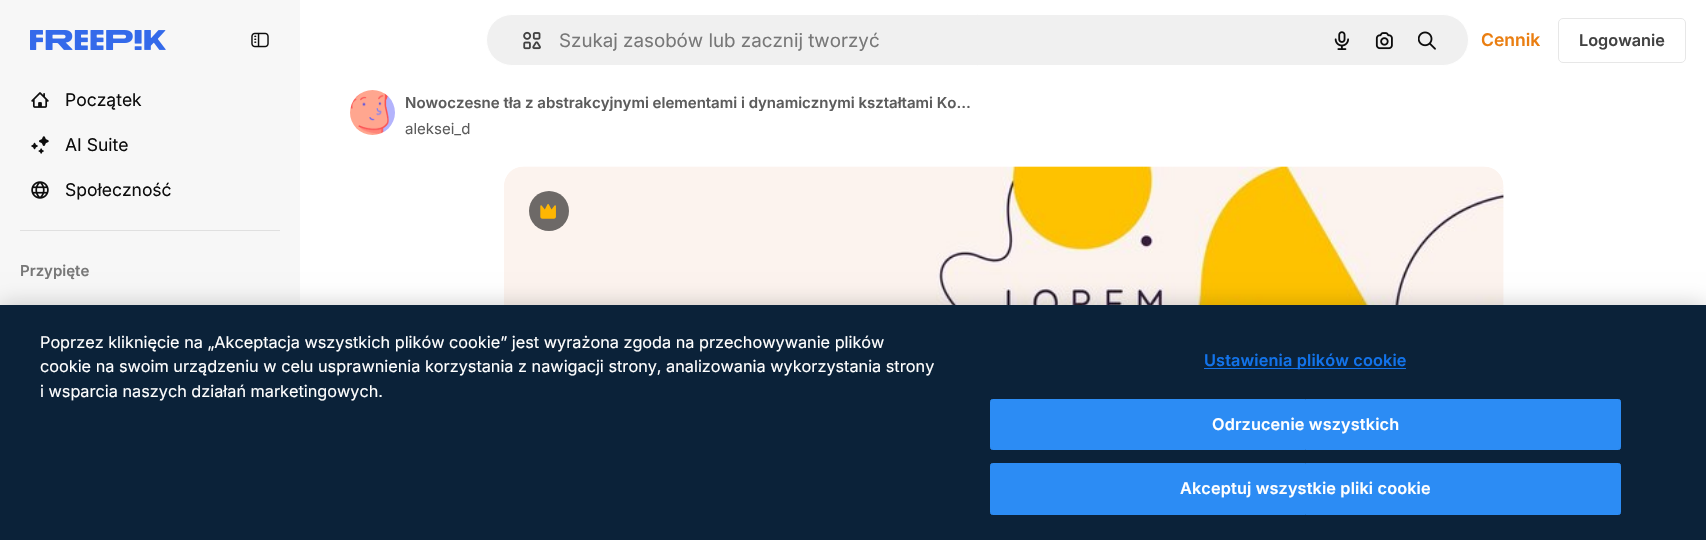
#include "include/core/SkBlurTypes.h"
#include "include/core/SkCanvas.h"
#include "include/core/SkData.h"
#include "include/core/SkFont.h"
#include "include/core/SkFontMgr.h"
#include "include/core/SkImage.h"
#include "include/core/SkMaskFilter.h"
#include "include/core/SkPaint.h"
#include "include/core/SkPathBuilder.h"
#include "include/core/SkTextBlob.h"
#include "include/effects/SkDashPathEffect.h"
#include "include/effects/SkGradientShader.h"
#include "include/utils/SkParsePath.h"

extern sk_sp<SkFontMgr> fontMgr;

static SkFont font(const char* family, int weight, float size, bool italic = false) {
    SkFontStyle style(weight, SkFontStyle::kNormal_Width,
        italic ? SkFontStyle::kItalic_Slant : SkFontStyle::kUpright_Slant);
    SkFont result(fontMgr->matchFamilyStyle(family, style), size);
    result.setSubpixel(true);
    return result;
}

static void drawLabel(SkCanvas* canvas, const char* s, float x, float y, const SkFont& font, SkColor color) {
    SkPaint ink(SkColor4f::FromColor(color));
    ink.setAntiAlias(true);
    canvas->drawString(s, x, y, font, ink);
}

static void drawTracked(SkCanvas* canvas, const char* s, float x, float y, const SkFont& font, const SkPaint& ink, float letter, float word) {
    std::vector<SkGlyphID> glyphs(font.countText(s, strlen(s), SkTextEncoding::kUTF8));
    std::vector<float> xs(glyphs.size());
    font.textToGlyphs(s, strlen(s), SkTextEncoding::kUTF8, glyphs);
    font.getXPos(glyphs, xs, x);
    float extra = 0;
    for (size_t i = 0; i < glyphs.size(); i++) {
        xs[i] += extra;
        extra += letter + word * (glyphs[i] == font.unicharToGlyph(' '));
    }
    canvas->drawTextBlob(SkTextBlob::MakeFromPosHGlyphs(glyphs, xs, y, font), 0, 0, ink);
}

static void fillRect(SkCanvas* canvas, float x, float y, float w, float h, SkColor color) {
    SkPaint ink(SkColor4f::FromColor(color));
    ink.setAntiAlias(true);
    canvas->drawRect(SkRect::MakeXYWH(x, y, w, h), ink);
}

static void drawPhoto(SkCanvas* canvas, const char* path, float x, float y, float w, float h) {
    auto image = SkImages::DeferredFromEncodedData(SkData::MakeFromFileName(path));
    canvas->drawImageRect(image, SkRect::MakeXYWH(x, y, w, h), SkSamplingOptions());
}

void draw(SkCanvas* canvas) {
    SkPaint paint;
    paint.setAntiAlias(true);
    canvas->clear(0xFFFFFFFF);
    fillRect(canvas, 0, 0, 300, 305, 0xFFF7F7F7);
    drawPhoto(canvas, "assets/img1.png", 30, 30, 136, 20);
    drawPhoto(canvas, "assets/img2.png", 251, 32, 18, 16);
    drawPhoto(canvas, "assets/img3.png", 31, 92, 18, 16);
    SkFont font1 = font("Inter", 400, 17.5f);
    drawLabel(canvas, "Początek", 65, 106, font1, 0xFF0D0D0D);
    drawPhoto(canvas, "assets/img4.png", 31, 136, 18, 18);
    drawLabel(canvas, "AI Suite", 65, 151, font1, 0xFF0D0D0D);
    drawPhoto(canvas, "assets/img5.png", 31, 181, 18, 18);
    drawLabel(canvas, "Społeczność", 65, 196, font1, 0xFF0D0D0D);
    fillRect(canvas, 20, 230, 260, 1, 0xFFE0E0E0);
    SkFont font2 = font("Inter", 600, 15);
    drawLabel(canvas, "Przypięte", 20, 276, font2, 0xFF787878);
    paint.setColor(0xFFF0F0F0);
    canvas->drawRoundRect(SkRect::MakeXYWH(486.5f, 14.5f, 982, 51), 25.5f, 25.5f, paint);
    paint.setStroke(true);
    paint.setStrokeWidth(1);
    paint.setColor(0xFFFFFFFF);
    canvas->drawRoundRect(SkRect::MakeXYWH(486.5f, 14.5f, 982, 51), 25.5f, 25.5f, paint);
    drawPhoto(canvas, "assets/img6.png", 523, 31, 18, 19);
    SkFont font3 = font("Inter", 400, 18.75f);
    drawLabel(canvas, "Szukaj zasobów lub zacznij tworzyć", 559, 47, font3, 0xFF787878);
    drawPhoto(canvas, "assets/img7.png", 1334, 31, 15, 19);
    drawPhoto(canvas, "assets/img8.png", 1375, 32, 18, 18);
    drawPhoto(canvas, "assets/img9.png", 1418, 31, 18, 19);
    SkFont font4 = font("Inter", 600, 17.5f);
    drawLabel(canvas, "Cennik", 1481, 46, font4, 0xFFEA7E11);
    paint.setColor(0xFFE7E7E7);
    canvas->drawRoundRect(SkRect::MakeXYWH(1558.5f, 18.5f, 127, 44), 4.5f, 4.5f, paint);
    SkFont font5 = font("Inter", 600, 16.25f);
    drawLabel(canvas, "Logowanie", 1579, 46, font5, 0xFF424242);
    drawPhoto(canvas, "assets/img10.png", 350, 90, 45, 45);
    drawLabel(canvas, "Nowoczesne tła z abstrakcyjnymi elementami i dynamicznymi kształtami Ko…", 405, 108, font2, 0xFF5C5C5C);
    SkFont font6 = font("Inter", 400, 15);
    drawLabel(canvas, "aleksei_d", 405, 134, font6, 0xFF5C5C5C);
    drawPhoto(canvas, "assets/img11.png", 504, 166, 1000, 139);
    paint.setStroke(false);
    paint.setColor(0xFF6D6967);
    canvas->drawCircle(549, 211, 20, paint);
    drawPhoto(canvas, "assets/img12.png", 540, 204, 16, 15);
    paint.setColor(0x33000000);
    paint.setMaskFilter(SkMaskFilter::MakeBlur(kNormal_SkBlurStyle, 11));
    canvas->drawRect(SkRect::MakeXYWH(0, 305, 1706, 235), paint);
    paint.setMaskFilter(nullptr);
    fillRect(canvas, 0, 305, 1706, 235, 0xFF0B2239);
    SkFont font7 = font("Inter", 400, 16.25f);
    drawLabel(canvas, "Poprzez kliknięcie na „Akceptacja wszystkich plików cookie” jest wyrażona zgoda na przechowywanie plików", 40, 348, font7, 0xFFFFFFFF);
    drawLabel(canvas, "cookie na swoim urządzeniu w celu usprawnienia korzystania z nawigacji strony, analizowania wykorzystania strony", 40, 372, font7, 0xFFFFFFFF);
    drawLabel(canvas, "i wsparcia naszych działań marketingowych.", 40, 397, font7, 0xFFFFFFFF);
    fillRect(canvas, 1204, 368, 202, 1, 0xFF1273EB);
    paint.setColor(0xFF1273EB);
    drawTracked(canvas, "Ustawienia plików cookie", 1204, 366, font5, paint, 0.15f, 0);
    paint.setColor(0xFF2C8CF4);
    canvas->drawRoundRect(SkRect::MakeXYWH(990.5f, 399.5f, 630, 50), 2, 2, paint);
    paint.setStroke(true);
    canvas->drawRoundRect(SkRect::MakeXYWH(990.5f, 399.5f, 630, 50), 2, 2, paint);
    paint.setStroke(false);
    paint.setColor(0xFFFFFFFF);
    drawTracked(canvas, "Odrzucenie wszystkich", 1212, 430, font5, paint, 0.15f, 0);
    paint.setColor(0xFF2C8CF4);
    canvas->drawRoundRect(SkRect::MakeXYWH(990.5f, 463.5f, 630, 51), 2, 2, paint);
    paint.setStroke(true);
    canvas->drawRoundRect(SkRect::MakeXYWH(990.5f, 463.5f, 630, 51), 2, 2, paint);
    paint.setStroke(false);
    paint.setColor(0xFFFFFFFF);
    drawTracked(canvas, "Akceptuj wszystkie pliki cookie", 1180, 494, font5, paint, 0.15f, 0);
}
